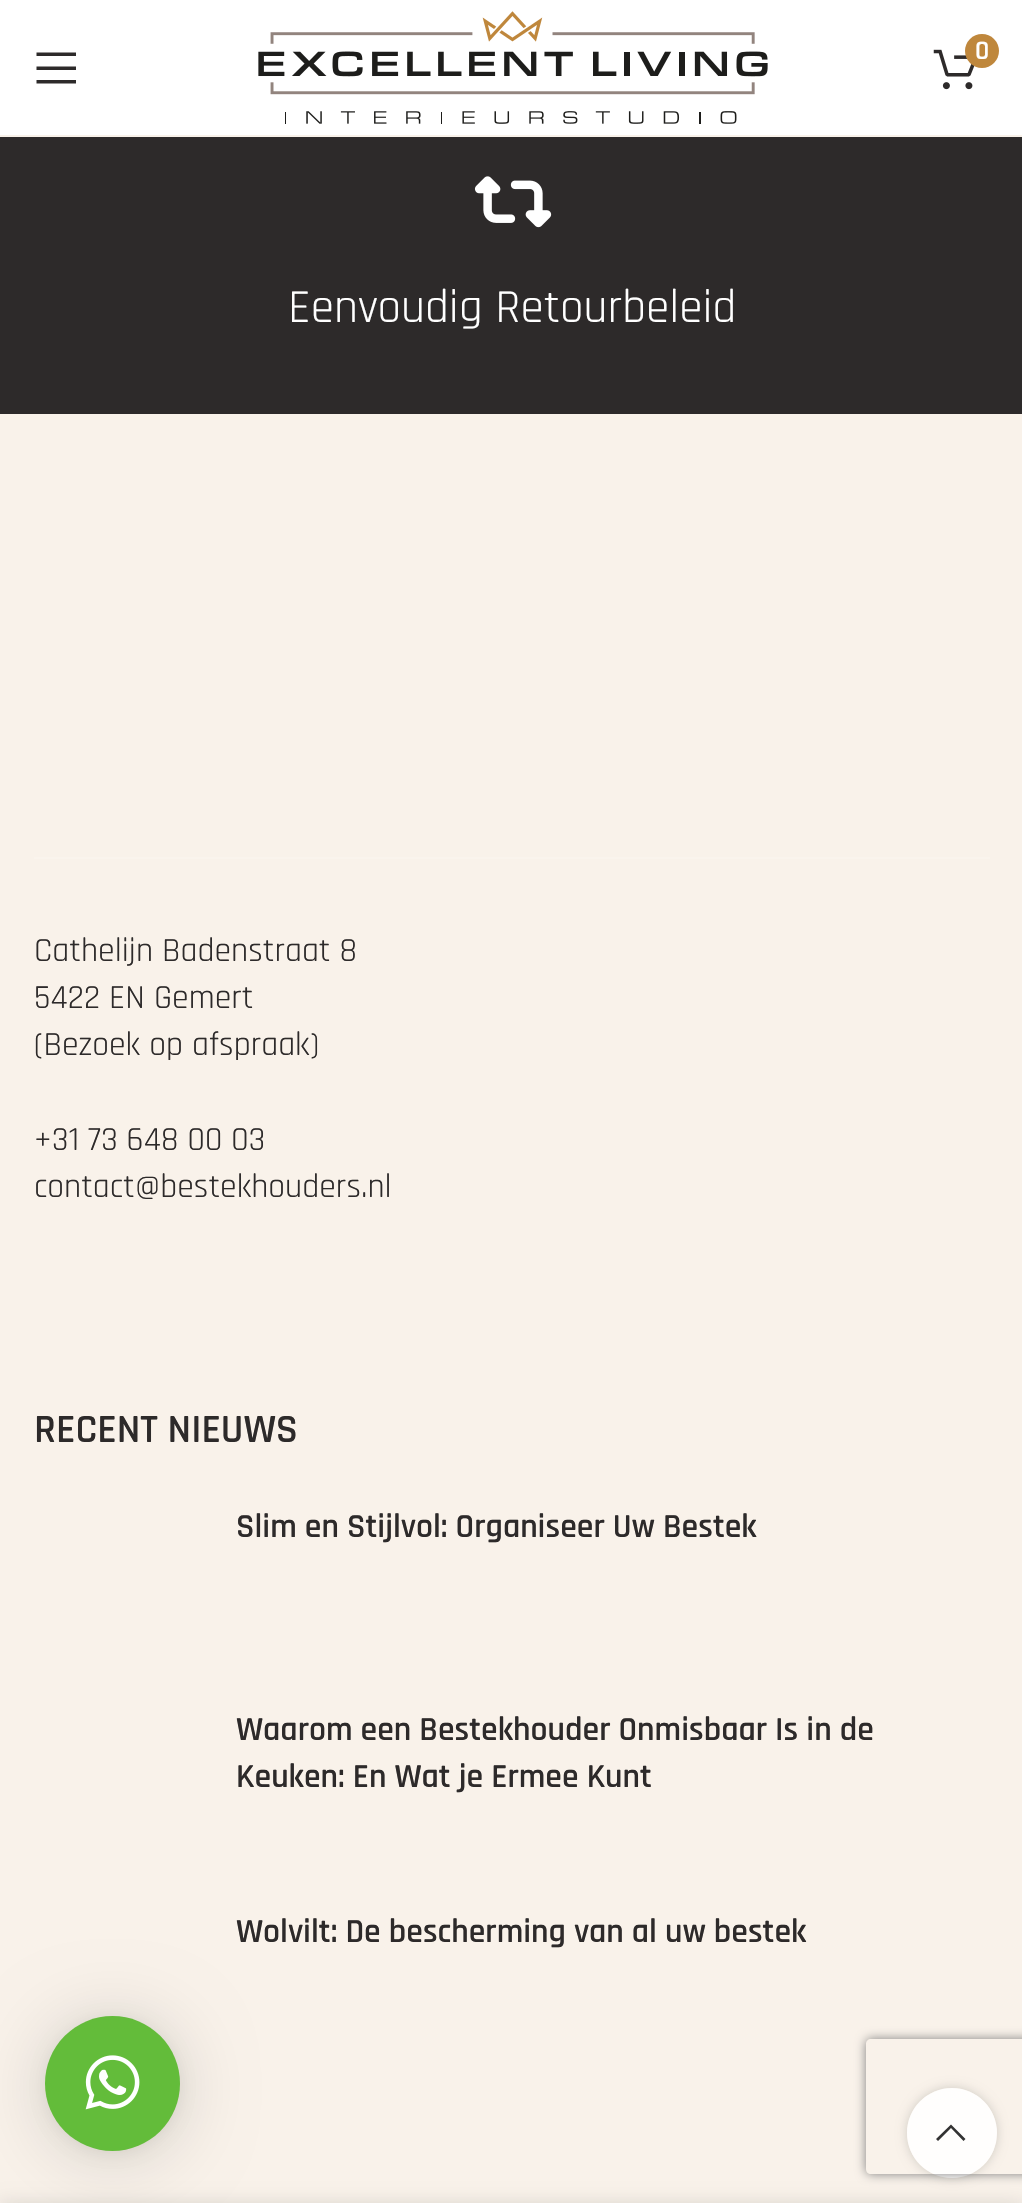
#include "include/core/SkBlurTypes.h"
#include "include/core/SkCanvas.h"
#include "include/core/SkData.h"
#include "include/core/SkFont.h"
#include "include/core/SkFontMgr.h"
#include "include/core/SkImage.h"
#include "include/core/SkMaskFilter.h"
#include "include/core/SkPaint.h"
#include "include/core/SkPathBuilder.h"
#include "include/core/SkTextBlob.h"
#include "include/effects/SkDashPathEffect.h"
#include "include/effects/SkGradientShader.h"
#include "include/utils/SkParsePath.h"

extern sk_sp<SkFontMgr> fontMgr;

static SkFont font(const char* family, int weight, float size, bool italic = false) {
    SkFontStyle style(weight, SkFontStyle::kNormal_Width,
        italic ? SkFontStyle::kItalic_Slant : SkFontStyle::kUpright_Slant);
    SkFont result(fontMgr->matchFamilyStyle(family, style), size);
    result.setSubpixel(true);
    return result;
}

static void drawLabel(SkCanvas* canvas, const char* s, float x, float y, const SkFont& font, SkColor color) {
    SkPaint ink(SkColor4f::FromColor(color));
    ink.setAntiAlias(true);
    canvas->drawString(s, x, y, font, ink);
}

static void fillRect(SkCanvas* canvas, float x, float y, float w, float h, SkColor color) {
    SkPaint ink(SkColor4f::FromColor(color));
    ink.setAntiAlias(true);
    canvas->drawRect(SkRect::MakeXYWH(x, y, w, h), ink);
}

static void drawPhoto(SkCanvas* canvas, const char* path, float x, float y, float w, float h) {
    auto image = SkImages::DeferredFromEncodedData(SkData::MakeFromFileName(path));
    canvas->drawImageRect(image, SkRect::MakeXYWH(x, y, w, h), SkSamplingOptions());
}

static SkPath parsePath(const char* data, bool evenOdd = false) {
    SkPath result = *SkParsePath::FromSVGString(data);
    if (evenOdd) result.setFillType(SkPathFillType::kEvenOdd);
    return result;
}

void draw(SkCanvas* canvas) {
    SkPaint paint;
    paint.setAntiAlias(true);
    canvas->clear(0xFFF9F2EA);
    fillRect(canvas, 0, 0, 1022, 135, 0xFFFFFFFF);
    drawPhoto(canvas, "assets/img1.png", 258, 11, 510, 113);
    drawPhoto(canvas, "assets/img2.png", 933, 49, 42, 41);
    paint.setColor(0xFFBF873C);
    canvas->drawCircle(982, 51, 17, paint);
    SkFont font1 = font("Rajdhani", 600, 27);
    drawLabel(canvas, "0", 975, 59, font1, 0xFFFFFFFF);
    paint.setColor(0xFF2D2A2A);
    canvas->drawPath(parsePath("M36.5 56H76V52.5H36.5ZM36.5 70H76V66.5H36.5ZM36.5 83.5H76V80H36.5Z"), paint);
    fillRect(canvas, 0, 137, 1022, 277, 0xFF2D2A2A);
    drawPhoto(canvas, "assets/img3.png", 474, 176, 78, 52);
    SkFont font2 = font("Rajdhani", 400, 47.25f);
    drawLabel(canvas, "Eenvoudig Retourbeleid", 288, 322, font2, 0xFFFFFFFF);
    fillRect(canvas, 34, 857, 956, 2, 0xFFFAF4ED);
    SkFont font3 = font("Rajdhani", 400, 33.75f);
    drawLabel(canvas, "Cathelijn Badenstraat 8", 34, 961, font3, 0xFF2D2A2A);
    drawLabel(canvas, "5422 EN Gemert", 34, 1008, font3, 0xFF2D2A2A);
    drawLabel(canvas, "(Bezoek op afspraak)", 34, 1055, font3, 0xFF2D2A2A);
    drawLabel(canvas, "+31 73 648 00 03", 34, 1150, font3, 0xFF2D2A2A);
    drawLabel(canvas, "contact@bestekhouders.nl", 34, 1197, font3, 0xFF2D2A2A);
    SkFont font4 = font("Rajdhani", 600, 40.5f);
    drawLabel(canvas, "RECENT NIEUWS", 34, 1442, font4, 0xFF2D2A2A);
    SkFont font5 = font("Rajdhani", 600, 33.75f);
    drawLabel(canvas, "Slim en Stijlvol: Organiseer Uw Bestek", 236, 1537, font5, 0xFF2D2A2A);
    drawLabel(canvas, "Waarom een Bestekhouder Onmisbaar Is in de", 236, 1740, font5, 0xFF2D2A2A);
    drawLabel(canvas, "Keuken: En Wat je Ermee Kunt", 236, 1787, font5, 0xFF2D2A2A);
    drawLabel(canvas, "Wolvilt: De bescherming van al uw bestek", 236, 1942, font5, 0xFF2D2A2A);
    paint.setColor(0x29000000);
    paint.setMaskFilter(SkMaskFilter::MakeBlur(kNormal_SkBlurStyle, 36));
    canvas->drawRoundRect(SkRect::MakeXYWH(45, 2021, 135, 135), 67.5f, 67.5f, paint);
    paint.setMaskFilter(nullptr);
    paint.setColor(0x0F000000);
    paint.setMaskFilter(SkMaskFilter::MakeBlur(kNormal_SkBlurStyle, 7));
    canvas->drawRoundRect(SkRect::MakeXYWH(45, 2018, 135, 135), 67.5f, 67.5f, paint);
    paint.setMaskFilter(nullptr);
    paint.setColor(0xFF63BC3A);
    canvas->drawCircle(112.5f, 2083.5f, 67.5f, paint);
    drawPhoto(canvas, "assets/img4.png", 85, 2055, 55, 55);
    canvas->save();
    canvas->clipPath(parsePath("M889 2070H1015V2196H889ZM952 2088C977 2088 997 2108 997 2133C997 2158 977 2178 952 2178C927 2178 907 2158 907 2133C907 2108 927 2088 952 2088Z", true), true);
    paint.setColor(0x2B000000);
    paint.setMaskFilter(SkMaskFilter::MakeBlur(kNormal_SkBlurStyle, 5.5f));
    canvas->drawRoundRect(SkRect::MakeXYWH(907, 2088, 90, 90), 45, 45, paint);
    paint.setMaskFilter(nullptr);
    canvas->restore();
    paint.setColor(0xE6FFFFFF);
    canvas->drawCircle(952, 2133, 45, paint);
    paint.setColor(0xFF333333);
    canvas->drawPath(parsePath("M963.5 2141L965.5 2139L951 2124.5L936 2139L938 2141L951 2128Z"), paint);
    canvas->save();
    canvas->clipPath(parsePath("M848 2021H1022V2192H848ZM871 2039H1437C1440 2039 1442 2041 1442 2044V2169C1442 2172 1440 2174 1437 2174H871C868 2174 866 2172 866 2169V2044C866 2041 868 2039 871 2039Z", true), true);
    paint.setColor(0xFF808080);
    paint.setMaskFilter(SkMaskFilter::MakeBlur(kNormal_SkBlurStyle, 5.5f));
    canvas->drawRoundRect(SkRect::MakeXYWH(866, 2039, 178, 135), 5, 5, paint);
    paint.setMaskFilter(nullptr);
    canvas->restore();
    paint.setColor(0x24000000);
    paint.setMaskFilter(SkMaskFilter::MakeBlur(kNormal_SkBlurStyle, 10));
    canvas->drawRect(SkRect::MakeXYWH(0, 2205, 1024, 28), paint);
    paint.setMaskFilter(nullptr);
}
